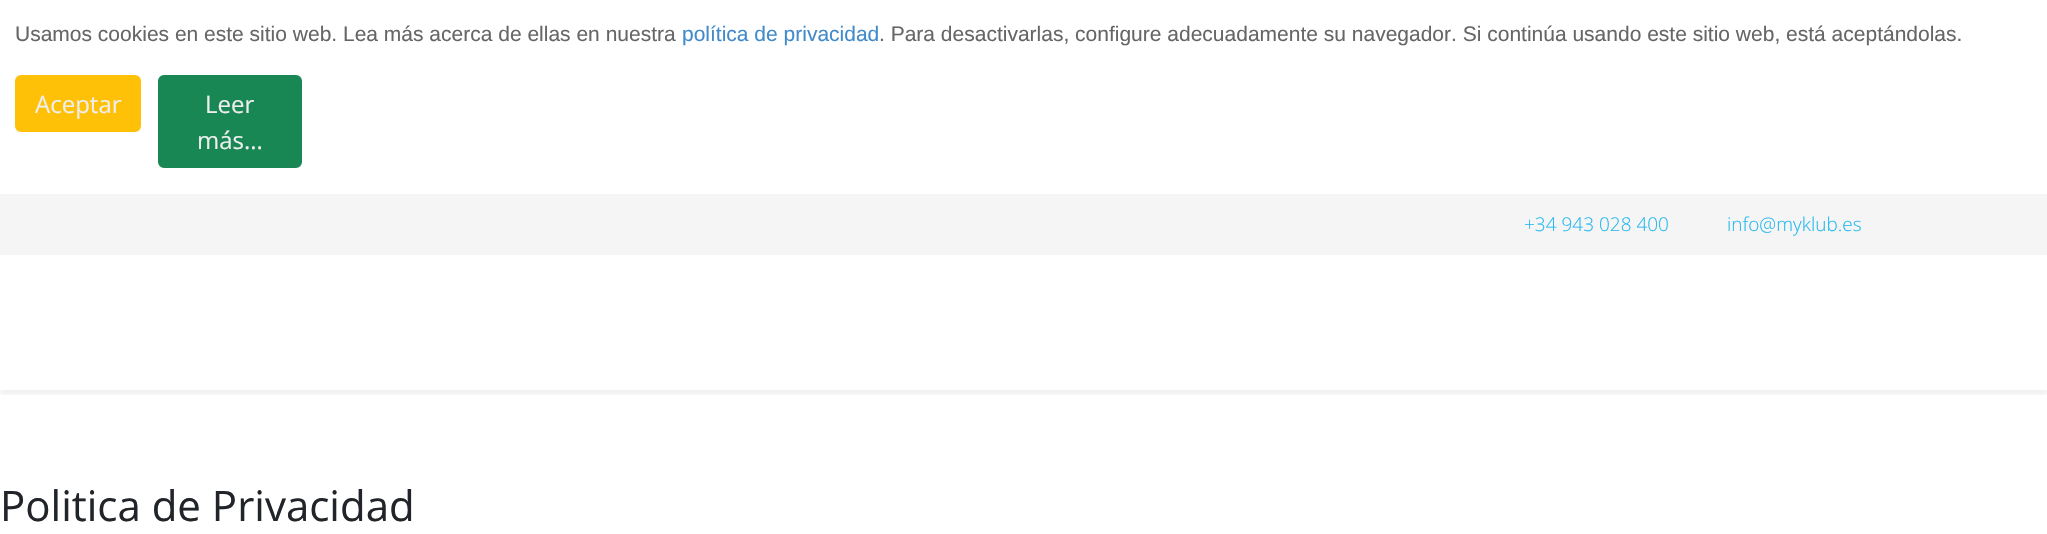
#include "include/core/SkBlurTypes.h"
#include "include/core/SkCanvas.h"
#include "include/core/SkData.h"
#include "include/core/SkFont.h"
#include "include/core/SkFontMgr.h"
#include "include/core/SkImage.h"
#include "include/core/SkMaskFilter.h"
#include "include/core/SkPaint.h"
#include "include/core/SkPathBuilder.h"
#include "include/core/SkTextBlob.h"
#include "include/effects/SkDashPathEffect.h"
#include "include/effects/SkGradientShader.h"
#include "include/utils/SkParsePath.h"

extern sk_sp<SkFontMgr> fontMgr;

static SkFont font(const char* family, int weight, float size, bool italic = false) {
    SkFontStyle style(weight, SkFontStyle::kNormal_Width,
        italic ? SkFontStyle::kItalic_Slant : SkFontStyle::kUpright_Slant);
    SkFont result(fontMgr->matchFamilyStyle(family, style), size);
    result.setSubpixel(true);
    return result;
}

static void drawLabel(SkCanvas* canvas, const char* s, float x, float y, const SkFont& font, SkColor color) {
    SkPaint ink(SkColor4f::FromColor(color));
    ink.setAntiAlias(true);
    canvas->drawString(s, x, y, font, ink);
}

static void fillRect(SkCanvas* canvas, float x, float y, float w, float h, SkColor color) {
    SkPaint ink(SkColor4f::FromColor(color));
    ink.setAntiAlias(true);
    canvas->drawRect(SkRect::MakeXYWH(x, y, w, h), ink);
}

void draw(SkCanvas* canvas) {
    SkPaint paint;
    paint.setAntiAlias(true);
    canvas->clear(0xFFFFFFFF);
    SkFont font1 = font("Liberation Sans", 400, 21);
    drawLabel(canvas, "Usamos cookies en este sitio web. Lea más acerca de ellas en nuestra", 15, 41, font1, 0xFF666666);
    drawLabel(canvas, "política de privacidad", 682, 41, font1, 0xFF428BCA);
    drawLabel(canvas, ". Para desactivarlas, configure adecuadamente su navegador. Si continúa usando este sitio web, está aceptándolas.", 879, 41, font1, 0xFF666666);
    paint.setColor(0xFFFFC107);
    canvas->drawRoundRect(SkRect::MakeXYWH(16, 76, 124, 55), 5, 5, paint);
    paint.setStroke(true);
    paint.setStrokeWidth(2);
    canvas->drawRoundRect(SkRect::MakeXYWH(16, 76, 124, 55), 5, 5, paint);
    SkFont font2 = font("Open Sans", 400, 24);
    drawLabel(canvas, "Aceptar", 35, 113, font2, 0xFFEEEEEE);
    paint.setStroke(false);
    paint.setColor(0xFF198754);
    canvas->drawRoundRect(SkRect::MakeXYWH(159, 76, 142, 91), 5, 5, paint);
    paint.setStroke(true);
    canvas->drawRoundRect(SkRect::MakeXYWH(159, 76, 142, 91), 5, 5, paint);
    drawLabel(canvas, "Leer", 205, 113, font2, 0xFFEEEEEE);
    drawLabel(canvas, "más...", 197, 149, font2, 0xFFEEEEEE);
    fillRect(canvas, 0, 194, 2047, 61, 0xFFF5F5F5);
    SkFont font3 = font("Open Sans", 300, 19);
    drawLabel(canvas, "+34 943 028 400", 1524, 231, font3, 0xFF22B8F0);
    drawLabel(canvas, "info@myklub.es", 1727, 231, font3, 0xFF22B8F0);
    canvas->save();
    canvas->clipRect(SkRect::MakeXYWH(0, 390, 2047, 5));
    paint.setStroke(false);
    paint.setColor(0x0D000000);
    paint.setMaskFilter(SkMaskFilter::MakeBlur(kNormal_SkBlurStyle, 2));
    canvas->drawRect(SkRect::MakeXYWH(0, 260, 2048, 135), paint);
    paint.setMaskFilter(nullptr);
    canvas->restore();
    SkFont font4 = font("Open Sans", 400, 42);
    drawLabel(canvas, "Politica de Privacidad", 0, 521, font4, 0xFF212529);
}
